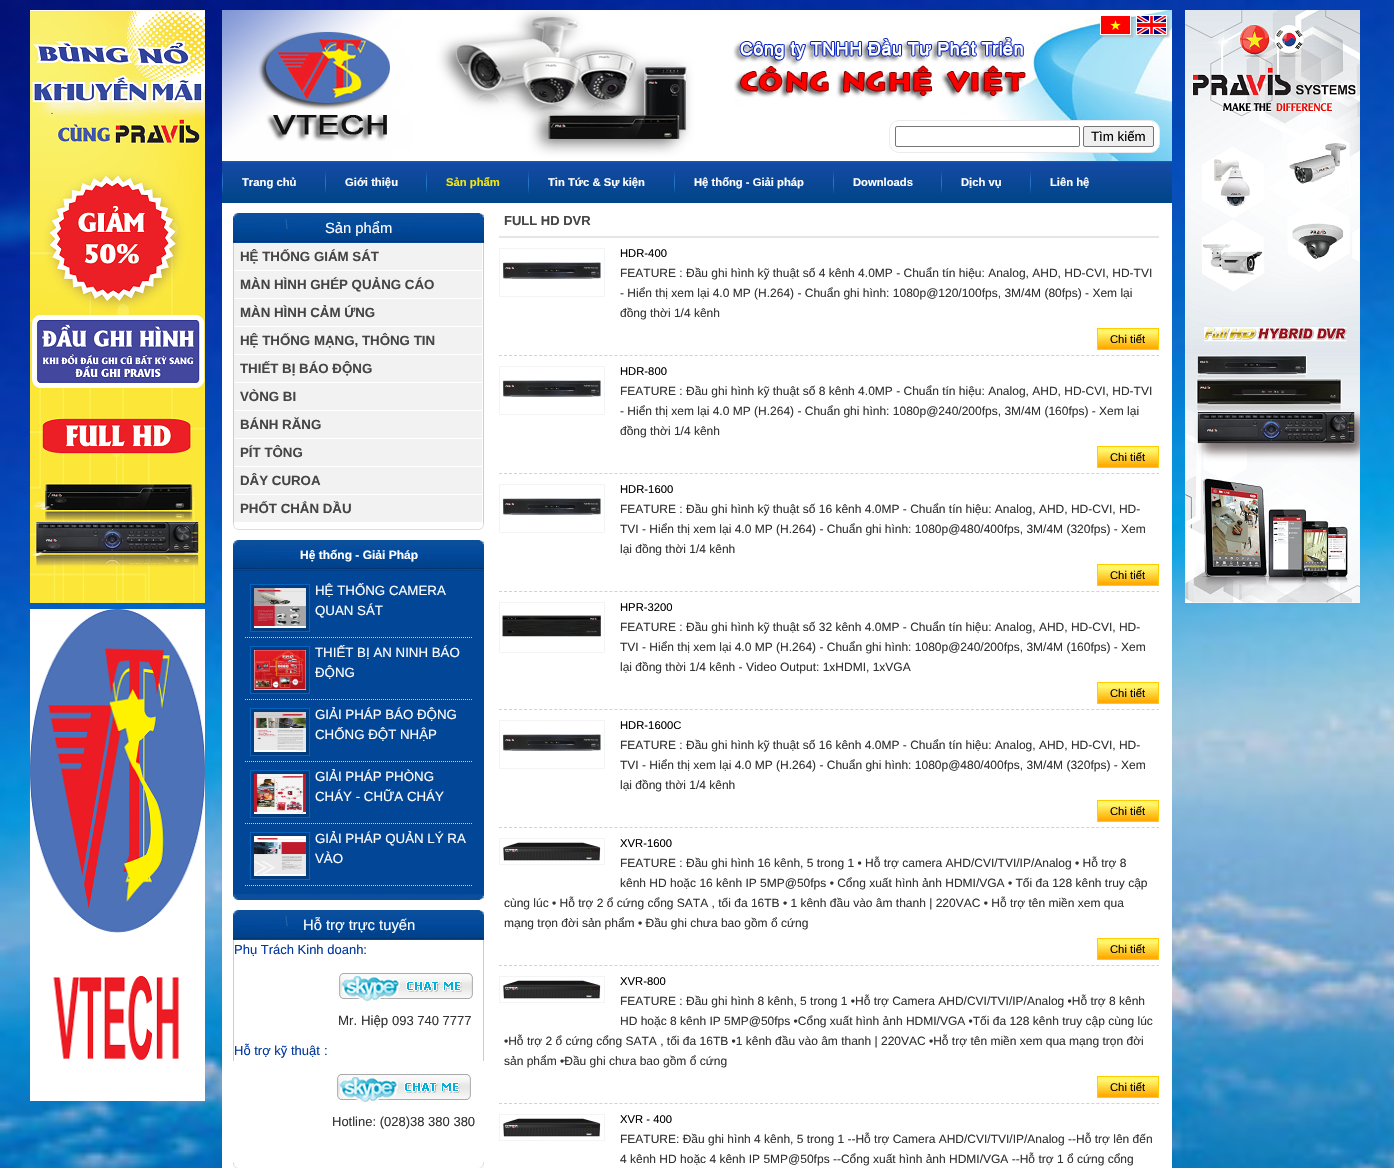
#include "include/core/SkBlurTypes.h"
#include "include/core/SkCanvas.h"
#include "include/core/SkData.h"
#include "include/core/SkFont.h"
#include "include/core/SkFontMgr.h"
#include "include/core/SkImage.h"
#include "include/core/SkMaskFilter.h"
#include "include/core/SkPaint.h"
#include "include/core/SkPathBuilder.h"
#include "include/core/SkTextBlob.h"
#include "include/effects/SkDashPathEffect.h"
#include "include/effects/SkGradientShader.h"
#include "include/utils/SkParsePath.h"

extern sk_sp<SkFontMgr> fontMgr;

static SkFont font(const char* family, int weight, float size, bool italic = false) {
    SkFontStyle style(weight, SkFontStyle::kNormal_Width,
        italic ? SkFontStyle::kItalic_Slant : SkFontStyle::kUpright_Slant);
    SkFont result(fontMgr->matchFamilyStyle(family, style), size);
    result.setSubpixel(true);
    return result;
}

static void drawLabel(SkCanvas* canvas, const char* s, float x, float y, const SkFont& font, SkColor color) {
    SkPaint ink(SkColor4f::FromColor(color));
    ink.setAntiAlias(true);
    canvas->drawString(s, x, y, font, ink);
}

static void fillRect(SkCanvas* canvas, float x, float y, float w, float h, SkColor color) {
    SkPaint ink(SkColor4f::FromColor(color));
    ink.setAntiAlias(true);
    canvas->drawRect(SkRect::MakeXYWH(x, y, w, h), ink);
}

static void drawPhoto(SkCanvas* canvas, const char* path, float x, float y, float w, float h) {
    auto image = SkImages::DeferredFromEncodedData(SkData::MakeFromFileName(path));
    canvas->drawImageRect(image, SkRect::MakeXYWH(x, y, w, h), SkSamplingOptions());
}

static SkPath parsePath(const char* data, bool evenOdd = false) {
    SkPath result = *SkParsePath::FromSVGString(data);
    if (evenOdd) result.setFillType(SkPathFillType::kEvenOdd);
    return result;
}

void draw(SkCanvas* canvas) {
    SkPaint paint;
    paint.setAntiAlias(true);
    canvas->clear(0xFFFFFFFF);
    drawPhoto(canvas, "assets/img1.png", 0, 0, 1394, 1168);
    fillRect(canvas, 222, 203, 950, 965, 0xFFFFFFFF);
    drawPhoto(canvas, "assets/img2.png", 30, 10, 175, 593);
    drawPhoto(canvas, "assets/img3.png", 30, 609, 175, 492);
    drawPhoto(canvas, "assets/img4.png", 222, 10, 950, 151);
    paint.setColor(0xFFB6B6B6);
    paint.setMaskFilter(SkMaskFilter::MakeBlur(kNormal_SkBlurStyle, 1));
    canvas->drawRect(SkRect::MakeXYWH(1138, 17, 31, 20), paint);
    paint.setMaskFilter(nullptr);
    paint.setStroke(true);
    paint.setStrokeWidth(1);
    paint.setColor(0xFFFFFFFF);
    canvas->drawRect(SkRect::MakeXYWH(1136.5f, 15.5f, 30, 19), paint);
    paint.setStroke(false);
    paint.setColor(0xFFB6B6B6);
    paint.setMaskFilter(SkMaskFilter::MakeBlur(kNormal_SkBlurStyle, 1));
    canvas->drawRect(SkRect::MakeXYWH(1102, 17, 31, 20), paint);
    paint.setMaskFilter(nullptr);
    paint.setStroke(true);
    paint.setColor(0xFFFFFFFF);
    canvas->drawRect(SkRect::MakeXYWH(1100.5f, 15.5f, 30, 19), paint);
    drawPhoto(canvas, "assets/img5.png", 1101, 16, 29, 18);
    drawPhoto(canvas, "assets/img6.png", 1137, 16, 29, 18);
    paint.setStroke(false);
    canvas->drawRoundRect(SkRect::MakeXYWH(889.5f, 120.5f, 270, 32), 9.5f, 9.5f, paint);
    paint.setStroke(true);
    paint.setColor(0xFFEBEBEB);
    canvas->drawRoundRect(SkRect::MakeXYWH(889.5f, 120.5f, 270, 32), 9.5f, 9.5f, paint);
    paint.setColor(0xFF767676);
    canvas->drawRoundRect(SkRect::MakeXYWH(895.5f, 126.5f, 184, 20), 1.5f, 1.5f, paint);
    paint.setStroke(false);
    paint.setColor(0xFFEFEFEF);
    canvas->drawRoundRect(SkRect::MakeXYWH(1083.5f, 126.5f, 70, 20), 1.5f, 1.5f, paint);
    paint.setStroke(true);
    paint.setColor(0xFF767676);
    canvas->drawRoundRect(SkRect::MakeXYWH(1083.5f, 126.5f, 70, 20), 1.5f, 1.5f, paint);
    SkFont font1 = font("Liberation Sans", 400, 13.3f);
    drawLabel(canvas, "Tìm kiếm", 1091, 141, font1, 0xFF000000);
    drawPhoto(canvas, "assets/img7.png", 1185, 10, 175, 593);
    drawPhoto(canvas, "assets/img8.png", 222, 161, 950, 42);
    drawPhoto(canvas, "assets/img9.png", 222, 171, 1, 23);
    SkFont font2 = font("Liberation Sans", 700, 11.25f);
    drawLabel(canvas, "Trang chủ", 242, 186, font2, 0xFFFFFFFF);
    drawPhoto(canvas, "assets/img9.png", 325, 171, 1, 23);
    drawLabel(canvas, "Giới thiệu", 345, 186, font2, 0xFFFFFFFF);
    drawPhoto(canvas, "assets/img9.png", 426, 171, 1, 23);
    drawLabel(canvas, "Sản phẩm", 446, 186, font2, 0xFFF2E711);
    drawPhoto(canvas, "assets/img9.png", 528, 171, 1, 23);
    drawLabel(canvas, "Tin Tức & Sự kiện", 548, 186, font2, 0xFFFFFFFF);
    drawPhoto(canvas, "assets/img9.png", 674, 171, 1, 23);
    drawLabel(canvas, "Hệ thống - Giải pháp", 694, 186, font2, 0xFFFFFFFF);
    drawPhoto(canvas, "assets/img9.png", 833, 171, 1, 23);
    drawLabel(canvas, "Downloads", 853, 186, font2, 0xFFFFFFFF);
    drawPhoto(canvas, "assets/img9.png", 941, 171, 1, 23);
    drawLabel(canvas, "Dịch vụ", 961, 186, font2, 0xFFFFFFFF);
    drawPhoto(canvas, "assets/img9.png", 1030, 171, 1, 23);
    drawLabel(canvas, "Liên hệ", 1050, 186, font2, 0xFFFFFFFF);
    drawPhoto(canvas, "assets/img10.png", 233, 213, 251, 30);
    SkFont font3 = font("Liberation Sans", 400, 14.75f);
    drawLabel(canvas, "Sản phẩm", 325, 233, font3, 0xFFFFFFFF);
    fillRect(canvas, 483, 243, 1, 280, 0xFFCCCCCC);
    fillRect(canvas, 233, 243, 1, 280, 0xFFCCCCCC);
    fillRect(canvas, 234, 243, 248, 27, 0xFFF2F2F2);
    SkFont font4 = font("Liberation Sans", 700, 13.3f);
    drawLabel(canvas, "HỆ THỐNG GIÁM SÁT", 240, 261, font4, 0xFF454545);
    fillRect(canvas, 234, 271, 248, 27, 0xFFF2F2F2);
    drawLabel(canvas, "MÀN HÌNH GHÉP QUẢNG CÁO", 240, 289, font4, 0xFF454545);
    fillRect(canvas, 234, 299, 248, 27, 0xFFF2F2F2);
    drawLabel(canvas, "MÀN HÌNH CẢM ỨNG", 240, 317, font4, 0xFF454545);
    fillRect(canvas, 234, 327, 248, 27, 0xFFF2F2F2);
    drawLabel(canvas, "HỆ THỐNG MẠNG, THÔNG TIN", 240, 345, font4, 0xFF454545);
    fillRect(canvas, 234, 355, 248, 27, 0xFFF2F2F2);
    drawLabel(canvas, "THIẾT BỊ BÁO ĐỘNG", 240, 373, font4, 0xFF454545);
    fillRect(canvas, 234, 383, 248, 27, 0xFFF2F2F2);
    drawLabel(canvas, "VÒNG BI", 240, 401, font4, 0xFF454545);
    fillRect(canvas, 234, 411, 248, 27, 0xFFF2F2F2);
    drawLabel(canvas, "BÁNH RĂNG", 240, 429, font4, 0xFF454545);
    fillRect(canvas, 234, 439, 248, 27, 0xFFF2F2F2);
    drawLabel(canvas, "PÍT TÔNG", 240, 457, font4, 0xFF454545);
    fillRect(canvas, 234, 467, 248, 27, 0xFFF2F2F2);
    drawLabel(canvas, "DÂY CUROA", 240, 485, font4, 0xFF454545);
    fillRect(canvas, 234, 495, 248, 27, 0xFFF2F2F2);
    drawLabel(canvas, "PHỐT CHẮN DẦU", 240, 513, font4, 0xFF454545);
    drawPhoto(canvas, "assets/img11.png", 233, 523, 251, 7);
    fillRect(canvas, 233, 540, 251, 354, 0xFF014697);
    drawPhoto(canvas, "assets/img12.png", 233, 540, 251, 31);
    SkFont font5 = font("Liberation Sans", 700, 12);
    drawLabel(canvas, "Hệ thống - Giải Pháp", 300, 559, font5, 0xFFFFFFFF);
    paint.setColor(0xFFCCCCCC);
    paint.setPathEffect(SkDashPathEffect::Make({{1, 1}}, 0));
    canvas->drawPath(parsePath("M245 637.5H472"), paint);
    paint.setPathEffect(nullptr);
    paint.setStroke(false);
    paint.setColor(0xFF003C7E);
    canvas->drawRect(SkRect::MakeXYWH(250.5f, 584.5f, 59, 47), paint);
    paint.setStroke(true);
    paint.setColor(0xFF0465BE);
    canvas->drawRect(SkRect::MakeXYWH(250.5f, 584.5f, 59, 47), paint);
    drawPhoto(canvas, "assets/img13.png", 254, 588, 52, 40);
    drawLabel(canvas, "HỆ THỐNG CAMERA", 315, 595, font1, 0xFFFFFFFF);
    drawLabel(canvas, "QUAN SÁT", 315, 615, font1, 0xFFFFFFFF);
    paint.setColor(0xFFCCCCCC);
    paint.setPathEffect(SkDashPathEffect::Make({{1, 1}}, 0));
    canvas->drawPath(parsePath("M245 699.5H472"), paint);
    paint.setPathEffect(nullptr);
    paint.setStroke(false);
    paint.setColor(0xFF003C7E);
    canvas->drawRect(SkRect::MakeXYWH(250.5f, 646.5f, 59, 47), paint);
    paint.setStroke(true);
    paint.setColor(0xFF0465BE);
    canvas->drawRect(SkRect::MakeXYWH(250.5f, 646.5f, 59, 47), paint);
    drawPhoto(canvas, "assets/img14.png", 254, 650, 52, 40);
    drawLabel(canvas, "THIẾT BỊ AN NINH BÁO", 315, 657, font1, 0xFFFFFFFF);
    drawLabel(canvas, "ĐỘNG", 315, 677, font1, 0xFFFFFFFF);
    paint.setColor(0xFFCCCCCC);
    paint.setPathEffect(SkDashPathEffect::Make({{1, 1}}, 0));
    canvas->drawPath(parsePath("M245 761.5H472"), paint);
    paint.setPathEffect(nullptr);
    paint.setStroke(false);
    paint.setColor(0xFF003C7E);
    canvas->drawRect(SkRect::MakeXYWH(250.5f, 708.5f, 59, 47), paint);
    paint.setStroke(true);
    paint.setColor(0xFF0465BE);
    canvas->drawRect(SkRect::MakeXYWH(250.5f, 708.5f, 59, 47), paint);
    drawPhoto(canvas, "assets/img15.png", 254, 712, 52, 40);
    drawLabel(canvas, "GIẢI PHÁP BÁO ĐỘNG", 315, 719, font1, 0xFFFFFFFF);
    drawLabel(canvas, "CHỐNG ĐỘT NHẬP", 315, 739, font1, 0xFFFFFFFF);
    paint.setColor(0xFFCCCCCC);
    paint.setPathEffect(SkDashPathEffect::Make({{1, 1}}, 0));
    canvas->drawPath(parsePath("M245 823.5H472"), paint);
    paint.setPathEffect(nullptr);
    paint.setStroke(false);
    paint.setColor(0xFF003C7E);
    canvas->drawRect(SkRect::MakeXYWH(250.5f, 770.5f, 59, 47), paint);
    paint.setStroke(true);
    paint.setColor(0xFF0465BE);
    canvas->drawRect(SkRect::MakeXYWH(250.5f, 770.5f, 59, 47), paint);
    drawPhoto(canvas, "assets/img16.png", 254, 774, 52, 40);
    drawLabel(canvas, "GIẢI PHÁP PHÒNG", 315, 781, font1, 0xFFFFFFFF);
    drawLabel(canvas, "CHÁY - CHỮA CHÁY", 315, 801, font1, 0xFFFFFFFF);
    paint.setColor(0xFFCCCCCC);
    paint.setPathEffect(SkDashPathEffect::Make({{1, 1}}, 0));
    canvas->drawPath(parsePath("M245 885.5H472"), paint);
    paint.setPathEffect(nullptr);
    paint.setStroke(false);
    paint.setColor(0xFF003C7E);
    canvas->drawRect(SkRect::MakeXYWH(250.5f, 832.5f, 59, 47), paint);
    paint.setStroke(true);
    paint.setColor(0xFF0465BE);
    canvas->drawRect(SkRect::MakeXYWH(250.5f, 832.5f, 59, 47), paint);
    drawPhoto(canvas, "assets/img17.png", 254, 836, 52, 40);
    drawLabel(canvas, "GIẢI PHÁP QUẢN LÝ RA", 315, 843, font1, 0xFFFFFFFF);
    drawLabel(canvas, "VÀO", 315, 863, font1, 0xFFFFFFFF);
    drawPhoto(canvas, "assets/img18.png", 233, 894, 251, 6);
    drawPhoto(canvas, "assets/img10.png", 233, 910, 251, 30);
    drawLabel(canvas, "Hỗ trợ trực tuyến", 303, 930, font3, 0xFFFFFFFF);
    fillRect(canvas, 483, 940, 1, 121, 0xFFCCCCCC);
    fillRect(canvas, 233, 940, 1, 121, 0xFFCCCCCC);
    SkFont font6 = font("Liberation Sans", 400, 13);
    drawLabel(canvas, "Phụ Trách Kinh doanh:", 234, 954, font6, 0xFF00389F);
    drawPhoto(canvas, "assets/img19.png", 339, 973, 134, 29);
    drawLabel(canvas, "Mr. Hiệp", 338, 1025, font1, 0xFF333333);
    drawLabel(canvas, "093 740 7777", 392, 1025, font6, 0xFF333333);
    drawLabel(canvas, "Hỗ trợ kỹ thuật", 234, 1055, font6, 0xFF00389F);
    drawLabel(canvas, ":", 324, 1055, font1, 0xFF00389F);
    drawPhoto(canvas, "assets/img19.png", 337, 1074, 134, 29);
    drawLabel(canvas, "Hotline: (028)38 380 380", 332, 1126, font6, 0xFF333333);
    drawPhoto(canvas, "assets/img20.png", 233, 1162, 251, 6);
    fillRect(canvas, 499, 236, 660, 2, 0xFFE5E5E5);
    SkFont font7 = font("Liberation Sans", 700, 13);
    drawLabel(canvas, "FULL HD DVR", 504, 225, font7, 0xFF454545);
    paint.setColor(0xFFCAD5D8);
    paint.setPathEffect(SkDashPathEffect::Make({{3, 2.02f}}, 0));
    canvas->drawPath(parsePath("M499 355.5H1159"), paint);
    paint.setPathEffect(nullptr);
    paint.setColor(0xFFF4F4F4);
    canvas->drawRect(SkRect::MakeXYWH(499.5f, 248.5f, 105, 48), paint);
    drawPhoto(canvas, "assets/img21.png", 503, 262, 98, 17);
    SkFont font8 = font("Liberation Sans", 400, 11.25f);
    drawLabel(canvas, "HDR-400", 620, 257, font8, 0xFF000000);
    SkFont font9 = font("Liberation Sans", 400, 12);
    drawLabel(canvas, "FEATURE : Đầu ghi hình kỹ thuật số 4 kênh 4.0MP - Chuẩn tín hiệu: Analog, AHD, HD-CVI, HD-TVI", 620, 277, font9, 0xFF333333);
    drawLabel(canvas, "- Hiển thị xem lại 4.0 MP (H.264) - Chuẩn ghi hình: 1080p@120/100fps, 3M/4M (80fps) - Xem lại", 620, 297, font9, 0xFF333333);
    drawLabel(canvas, "đồng thời 1/4 kênh", 620, 317, font9, 0xFF333333);
    drawPhoto(canvas, "assets/img22.png", 1098, 329, 60, 20);
    paint.setColor(0xFFFFCC00);
    canvas->drawRect(SkRect::MakeXYWH(1097.5f, 328.5f, 61, 21), paint);
    drawLabel(canvas, "Chi tiết", 1110, 343, font8, 0xFF000000);
    paint.setColor(0xFFCAD5D8);
    paint.setPathEffect(SkDashPathEffect::Make({{3, 2.02f}}, 0));
    canvas->drawPath(parsePath("M499 473.5H1159"), paint);
    paint.setPathEffect(nullptr);
    paint.setColor(0xFFF4F4F4);
    canvas->drawRect(SkRect::MakeXYWH(499.5f, 366.5f, 105, 48), paint);
    drawPhoto(canvas, "assets/img21.png", 503, 380, 98, 17);
    drawLabel(canvas, "HDR-800", 620, 375, font8, 0xFF000000);
    drawLabel(canvas, "FEATURE : Đầu ghi hình kỹ thuật số 8 kênh 4.0MP - Chuẩn tín hiệu: Analog, AHD, HD-CVI, HD-TVI", 620, 395, font9, 0xFF333333);
    drawLabel(canvas, "- Hiển thị xem lại 4.0 MP (H.264) - Chuẩn ghi hình: 1080p@240/200fps, 3M/4M (160fps) - Xem lại", 620, 415, font9, 0xFF333333);
    drawLabel(canvas, "đồng thời 1/4 kênh", 620, 435, font9, 0xFF333333);
    drawPhoto(canvas, "assets/img22.png", 1098, 447, 60, 20);
    paint.setColor(0xFFFFCC00);
    canvas->drawRect(SkRect::MakeXYWH(1097.5f, 446.5f, 61, 21), paint);
    drawLabel(canvas, "Chi tiết", 1110, 461, font8, 0xFF000000);
    paint.setColor(0xFFCAD5D8);
    paint.setPathEffect(SkDashPathEffect::Make({{3, 2.02f}}, 0));
    canvas->drawPath(parsePath("M499 591.5H1159"), paint);
    paint.setPathEffect(nullptr);
    paint.setColor(0xFFF4F4F4);
    canvas->drawRect(SkRect::MakeXYWH(499.5f, 484.5f, 105, 48), paint);
    drawPhoto(canvas, "assets/img21.png", 503, 498, 98, 17);
    drawLabel(canvas, "HDR-1600", 620, 493, font8, 0xFF000000);
    drawLabel(canvas, "FEATURE : Đầu ghi hình kỹ thuật số 16 kênh 4.0MP - Chuẩn tín hiệu: Analog, AHD, HD-CVI, HD-", 620, 513, font9, 0xFF333333);
    drawLabel(canvas, "TVI - Hiển thị xem lại 4.0 MP (H.264) - Chuẩn ghi hình: 1080p@480/400fps, 3M/4M (320fps) - Xem", 620, 533, font9, 0xFF333333);
    drawLabel(canvas, "lại đồng thời 1/4 kênh", 620, 553, font9, 0xFF333333);
    drawPhoto(canvas, "assets/img22.png", 1098, 565, 60, 20);
    paint.setColor(0xFFFFCC00);
    canvas->drawRect(SkRect::MakeXYWH(1097.5f, 564.5f, 61, 21), paint);
    drawLabel(canvas, "Chi tiết", 1110, 579, font8, 0xFF000000);
    paint.setColor(0xFFCAD5D8);
    paint.setPathEffect(SkDashPathEffect::Make({{3, 2.02f}}, 0));
    canvas->drawPath(parsePath("M499 709.5H1159"), paint);
    paint.setPathEffect(nullptr);
    paint.setColor(0xFFF4F4F4);
    canvas->drawRect(SkRect::MakeXYWH(499.5f, 602.5f, 105, 50), paint);
    drawPhoto(canvas, "assets/img23.png", 502, 615, 99, 22);
    drawLabel(canvas, "HPR-3200", 620, 611, font8, 0xFF000000);
    drawLabel(canvas, "FEATURE : Đầu ghi hình kỹ thuật số 32 kênh 4.0MP - Chuẩn tín hiệu: Analog, AHD, HD-CVI, HD-", 620, 631, font9, 0xFF333333);
    drawLabel(canvas, "TVI - Hiển thị xem lại 4.0 MP (H.264) - Chuẩn ghi hình: 1080p@240/200fps, 3M/4M (160fps) - Xem", 620, 651, font9, 0xFF333333);
    drawLabel(canvas, "lại đồng thời 1/4 kênh - Video Output: 1xHDMI, 1xVGA", 620, 671, font9, 0xFF333333);
    drawPhoto(canvas, "assets/img22.png", 1098, 683, 60, 20);
    paint.setColor(0xFFFFCC00);
    canvas->drawRect(SkRect::MakeXYWH(1097.5f, 682.5f, 61, 21), paint);
    drawLabel(canvas, "Chi tiết", 1110, 697, font8, 0xFF000000);
    paint.setColor(0xFFCAD5D8);
    paint.setPathEffect(SkDashPathEffect::Make({{3, 2.02f}}, 0));
    canvas->drawPath(parsePath("M499 827.5H1159"), paint);
    paint.setPathEffect(nullptr);
    paint.setColor(0xFFF4F4F4);
    canvas->drawRect(SkRect::MakeXYWH(499.5f, 720.5f, 105, 48), paint);
    drawPhoto(canvas, "assets/img21.png", 503, 734, 98, 17);
    drawLabel(canvas, "HDR-1600C", 620, 729, font8, 0xFF000000);
    drawLabel(canvas, "FEATURE : Đầu ghi hình kỹ thuật số 16 kênh 4.0MP - Chuẩn tín hiệu: Analog, AHD, HD-CVI, HD-", 620, 749, font9, 0xFF333333);
    drawLabel(canvas, "TVI - Hiển thị xem lại 4.0 MP (H.264) - Chuẩn ghi hình: 1080p@480/400fps, 3M/4M (320fps) - Xem", 620, 769, font9, 0xFF333333);
    drawLabel(canvas, "lại đồng thời 1/4 kênh", 620, 789, font9, 0xFF333333);
    drawPhoto(canvas, "assets/img22.png", 1098, 801, 60, 20);
    paint.setColor(0xFFFFCC00);
    canvas->drawRect(SkRect::MakeXYWH(1097.5f, 800.5f, 61, 21), paint);
    drawLabel(canvas, "Chi tiết", 1110, 815, font8, 0xFF000000);
    paint.setColor(0xFFCAD5D8);
    paint.setPathEffect(SkDashPathEffect::Make({{3, 2.02f}}, 0));
    canvas->drawPath(parsePath("M499 965.5H1159"), paint);
    paint.setPathEffect(nullptr);
    paint.setColor(0xFFF4F4F4);
    canvas->drawRect(SkRect::MakeXYWH(499.5f, 838.5f, 105, 26), paint);
    drawPhoto(canvas, "assets/img24.png", 503, 842, 98, 19);
    drawLabel(canvas, "XVR-1600", 620, 847, font8, 0xFF000000);
    drawLabel(canvas, "FEATURE : Đầu ghi hình 16 kênh, 5 trong 1 • Hỗ trợ camera AHD/CVI/TVI/IP/Analog • Hỗ trợ 8", 620, 867, font9, 0xFF333333);
    drawLabel(canvas, "kênh HD hoặc 16 kênh IP 5MP@50fps • Cổng xuất hình ảnh HDMI/VGA • Tối đa 128 kênh truy cập", 620, 887, font9, 0xFF333333);
    drawLabel(canvas, "cùng lúc • Hỗ trợ 2 ổ cứng cổng SATA , tối đa 16TB • 1 kênh đầu vào âm thanh | 220VAC • Hỗ trợ tên miền xem qua", 504, 907, font9, 0xFF333333);
    drawLabel(canvas, "mạng trọn đời sản phẩm • Đầu ghi chưa bao gồm ổ cứng", 504, 927, font9, 0xFF333333);
    drawPhoto(canvas, "assets/img22.png", 1098, 939, 60, 20);
    paint.setColor(0xFFFFCC00);
    canvas->drawRect(SkRect::MakeXYWH(1097.5f, 938.5f, 61, 21), paint);
    drawLabel(canvas, "Chi tiết", 1110, 953, font8, 0xFF000000);
    paint.setColor(0xFFCAD5D8);
    paint.setPathEffect(SkDashPathEffect::Make({{3, 2.02f}}, 0));
    canvas->drawPath(parsePath("M499 1103.5H1159"), paint);
    paint.setPathEffect(nullptr);
    paint.setColor(0xFFF4F4F4);
    canvas->drawRect(SkRect::MakeXYWH(499.5f, 976.5f, 105, 26), paint);
    drawPhoto(canvas, "assets/img24.png", 503, 980, 98, 19);
    drawLabel(canvas, "XVR-800", 620, 985, font8, 0xFF000000);
    drawLabel(canvas, "FEATURE : Đầu ghi hình 8 kênh, 5 trong 1 •Hỗ trợ Camera AHD/CVI/TVI/IP/Analog •Hỗ trợ 8 kênh", 620, 1005, font9, 0xFF333333);
    drawLabel(canvas, "HD hoặc 8 kênh IP 5MP@50fps •Cổng xuất hình ảnh HDMI/VGA •Tối đa 128 kênh truy cập cùng lúc", 620, 1025, font9, 0xFF333333);
    drawLabel(canvas, "•Hỗ trợ 2 ổ cứng cổng SATA , tối đa 16TB •1 kênh đầu vào âm thanh | 220VAC •Hỗ trợ tên miền xem qua mạng trọn đời", 504, 1045, font9, 0xFF333333);
    drawLabel(canvas, "sản phẩm •Đầu ghi chưa bao gồm ổ cứng", 504, 1065, font9, 0xFF333333);
    drawPhoto(canvas, "assets/img22.png", 1098, 1077, 60, 20);
    paint.setColor(0xFFFFCC00);
    canvas->drawRect(SkRect::MakeXYWH(1097.5f, 1076.5f, 61, 21), paint);
    drawLabel(canvas, "Chi tiết", 1110, 1091, font8, 0xFF000000);
    paint.setColor(0xFFF4F4F4);
    canvas->drawRect(SkRect::MakeXYWH(499.5f, 1114.5f, 105, 26), paint);
    drawPhoto(canvas, "assets/img24.png", 503, 1118, 98, 19);
    drawLabel(canvas, "XVR - 400", 620, 1123, font8, 0xFF000000);
    drawLabel(canvas, "FEATURE: Đầu ghi hình 4 kênh, 5 trong 1 --Hỗ trợ Camera AHD/CVI/TVI/IP/Analog --Hỗ trợ lên đến", 620, 1143, font9, 0xFF333333);
    drawLabel(canvas, "4 kênh HD hoặc 4 kênh IP 5MP@50fps --Cổng xuất hình ảnh HDMI/VGA --Hỗ trợ 1 ổ cứng cổng", 620, 1163, font9, 0xFF333333);
}
